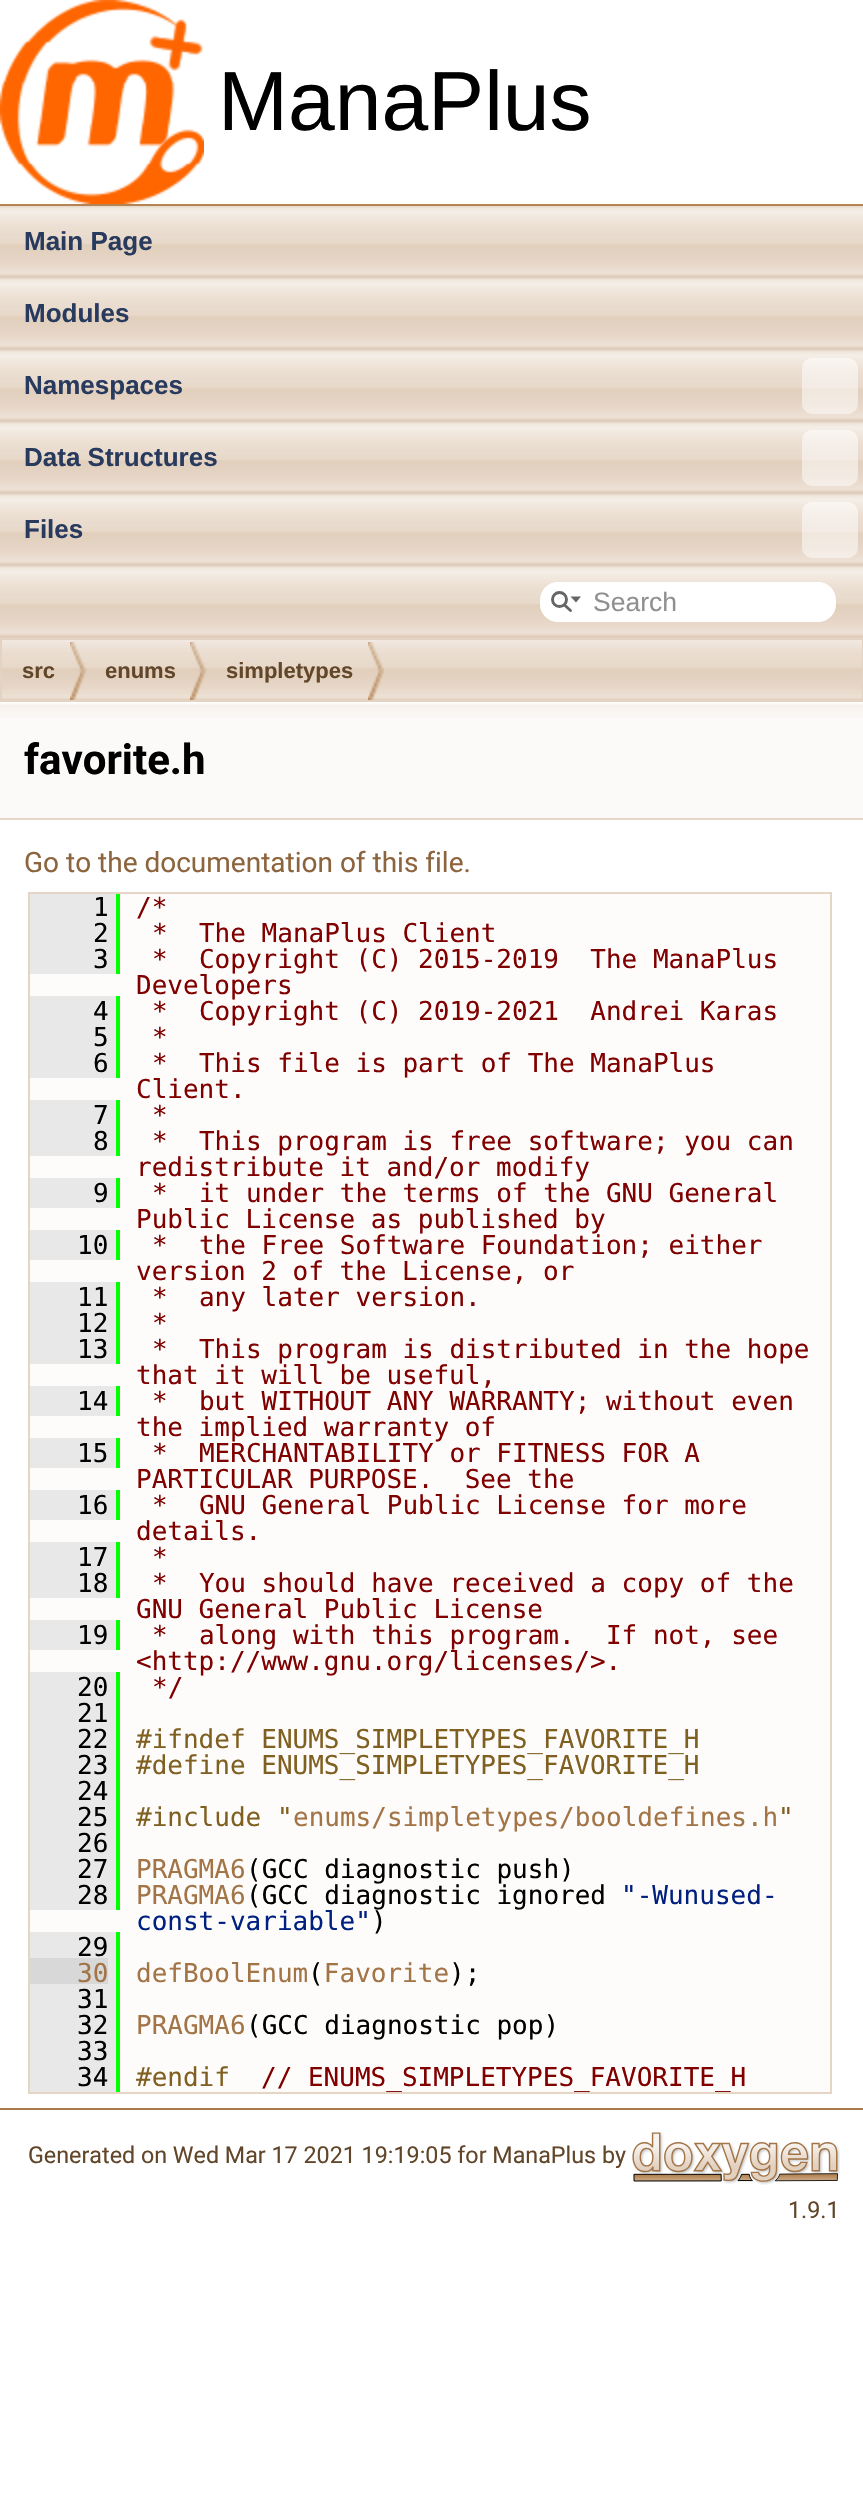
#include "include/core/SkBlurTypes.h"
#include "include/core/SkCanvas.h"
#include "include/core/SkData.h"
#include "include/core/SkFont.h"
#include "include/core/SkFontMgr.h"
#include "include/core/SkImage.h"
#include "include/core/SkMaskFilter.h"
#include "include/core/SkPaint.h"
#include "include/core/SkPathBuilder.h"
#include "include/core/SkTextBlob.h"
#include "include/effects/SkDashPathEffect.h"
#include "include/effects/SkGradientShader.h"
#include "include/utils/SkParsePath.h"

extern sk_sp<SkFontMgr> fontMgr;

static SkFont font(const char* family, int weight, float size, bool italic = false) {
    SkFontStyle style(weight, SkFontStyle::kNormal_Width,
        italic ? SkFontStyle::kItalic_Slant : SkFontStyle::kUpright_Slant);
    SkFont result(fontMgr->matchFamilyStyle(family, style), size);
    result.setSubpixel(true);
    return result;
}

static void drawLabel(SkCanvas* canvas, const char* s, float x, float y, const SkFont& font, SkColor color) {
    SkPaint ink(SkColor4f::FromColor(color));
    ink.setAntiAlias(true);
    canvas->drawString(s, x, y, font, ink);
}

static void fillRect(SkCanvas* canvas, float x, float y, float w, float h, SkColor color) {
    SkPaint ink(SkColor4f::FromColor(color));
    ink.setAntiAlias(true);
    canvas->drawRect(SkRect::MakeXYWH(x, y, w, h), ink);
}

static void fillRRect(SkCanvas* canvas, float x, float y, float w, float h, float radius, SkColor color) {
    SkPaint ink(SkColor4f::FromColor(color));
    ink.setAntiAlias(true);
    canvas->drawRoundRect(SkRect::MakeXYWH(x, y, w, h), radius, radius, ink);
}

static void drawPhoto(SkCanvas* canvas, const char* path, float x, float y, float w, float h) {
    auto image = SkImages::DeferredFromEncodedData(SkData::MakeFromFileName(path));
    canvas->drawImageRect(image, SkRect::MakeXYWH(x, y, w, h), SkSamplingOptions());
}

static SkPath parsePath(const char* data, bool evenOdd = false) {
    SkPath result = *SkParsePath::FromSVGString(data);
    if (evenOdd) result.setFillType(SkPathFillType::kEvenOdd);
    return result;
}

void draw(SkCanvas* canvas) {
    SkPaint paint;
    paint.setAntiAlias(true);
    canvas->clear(0xFFFFFFFF);
    fillRect(canvas, 0, 204, 863, 2, 0xFFB48453);
    drawPhoto(canvas, "assets/img1.png", 0, 0, 204, 204);
    SkFont font1 = font("Liberation Sans", 400, 84);
    drawLabel(canvas, "ManaPlus", 218, 130, font1, 0xFF000000);
    drawPhoto(canvas, "assets/img2.png", 0, 206, 863, 432);
    SkFont font2 = font("Liberation Sans", 700, 26);
    drawLabel(canvas, "Main Page", 24, 250, font2, 0xFF283A5D);
    drawLabel(canvas, "Modules", 24, 322, font2, 0xFF283A5D);
    drawLabel(canvas, "Namespaces", 24, 394, font2, 0xFF283A5D);
    fillRRect(canvas, 802, 358, 56, 56, 10, 0x80FFFFFF);
    drawLabel(canvas, "Data Structures", 24, 466, font2, 0xFF283A5D);
    fillRRect(canvas, 802, 430, 56, 56, 10, 0x80FFFFFF);
    drawLabel(canvas, "Files", 24, 538, font2, 0xFF283A5D);
    fillRRect(canvas, 802, 502, 56, 56, 10, 0x80FFFFFF);
    fillRRect(canvas, 540, 582, 296, 40, 18, 0xFFFFFFFF);
    paint.setStroke(true);
    paint.setStrokeWidth(2.9f);
    paint.setColor(0xFF656565);
    canvas->drawCircle(559.5f, 599.5f, 7, paint);
    paint.setStroke(false);
    canvas->drawPath(parsePath("M570.5 596.5L576 602.5L581 596.5Z"), paint);
    paint.setStroke(true);
    paint.setStrokeCap(SkPaint::kRound_Cap);
    canvas->drawPath(parsePath("M564.5 605L570.5 610.5"), paint);
    SkFont font3 = font("Liberation Sans", 400, 26.5f);
    drawLabel(canvas, "Search", 593, 611, font3, 0xFF909090);
    drawPhoto(canvas, "assets/img3.png", 2, 640, 860, 60);
    paint.setStrokeWidth(2);
    paint.setStrokeCap(SkPaint::kButt_Cap);
    paint.setColor(0xFFE4D3C2);
    canvas->drawRect(SkRect::MakeXYWH(1, 639, 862, 62), paint);
    drawPhoto(canvas, "assets/img4.png", 70, 642, 16, 58);
    SkFont font4 = font("Liberation Sans", 700, 22);
    drawLabel(canvas, "src", 22, 678, font4, 0xFF61462A);
    drawPhoto(canvas, "assets/img4.png", 190, 642, 16, 58);
    drawLabel(canvas, "enums", 105, 678, font4, 0xFF61462A);
    drawPhoto(canvas, "assets/img4.png", 368, 642, 16, 58);
    drawLabel(canvas, "simpletypes", 226, 678, font4, 0xFF61462A);
    fillRect(canvas, 0, 718, 863, 100, 0xFFFCFAF9);
    drawPhoto(canvas, "assets/img5.png", 0, 702, 863, 16);
    fillRect(canvas, 0, 818, 863, 2, 0xFFE5D5C4);
    SkFont font5 = font("Roboto", 700, 42);
    drawLabel(canvas, "favorite.h", 24, 774, font5, 0xFF000000);
    SkFont font6 = font("Roboto", 400, 28);
    drawLabel(canvas, "Go to the documentation of this file.", 24, 872, font6, 0xFF8C643D);
    paint.setStroke(false);
    paint.setColor(0xFFFDFCFB);
    canvas->drawRect(SkRect::MakeXYWH(29, 893, 802, 1200), paint);
    paint.setStroke(true);
    paint.setColor(0xFFE5D5C4);
    canvas->drawRect(SkRect::MakeXYWH(29, 893, 802, 1200), paint);
    fillRect(canvas, 30, 894, 86, 80, 0xFFE8E8E8);
    SkFont font7 = font("DejaVu Sans Mono", 400, 26);
    drawLabel(canvas, "1", 93, 916, font7, 0xFF000000);
    fillRect(canvas, 116, 894, 4, 80, 0xFF00FF00);
    drawLabel(canvas, "/*", 136, 916, font7, 0xFF800000);
    drawLabel(canvas, "2", 93, 942, font7, 0xFF000000);
    drawLabel(canvas, "*  The ManaPlus Client", 152, 942, font7, 0xFF800000);
    drawLabel(canvas, "3", 93, 968, font7, 0xFF000000);
    drawLabel(canvas, "*  Copyright (C) 2015-2019  The ManaPlus", 152, 968, font7, 0xFF800000);
    drawLabel(canvas, "Developers", 136, 994, font7, 0xFF800000);
    fillRect(canvas, 30, 996, 86, 82, 0xFFE8E8E8);
    drawLabel(canvas, "4", 93, 1020, font7, 0xFF000000);
    fillRect(canvas, 116, 996, 4, 82, 0xFF00FF00);
    drawLabel(canvas, "*  Copyright (C) 2019-2021  Andrei Karas", 152, 1020, font7, 0xFF800000);
    drawLabel(canvas, "5", 93, 1046, font7, 0xFF000000);
    drawLabel(canvas, "*", 152, 1046, font7, 0xFF800000);
    drawLabel(canvas, "6", 93, 1072, font7, 0xFF000000);
    drawLabel(canvas, "*  This file is part of The ManaPlus", 152, 1072, font7, 0xFF800000);
    drawLabel(canvas, "Client.", 136, 1098, font7, 0xFF800000);
    fillRect(canvas, 30, 1100, 86, 56, 0xFFE8E8E8);
    drawLabel(canvas, "7", 93, 1124, font7, 0xFF000000);
    fillRect(canvas, 116, 1100, 4, 56, 0xFF00FF00);
    drawLabel(canvas, "*", 152, 1124, font7, 0xFF800000);
    drawLabel(canvas, "8", 93, 1150, font7, 0xFF000000);
    drawLabel(canvas, "*  This program is free software; you can", 152, 1150, font7, 0xFF800000);
    drawLabel(canvas, "redistribute it and/or modify", 136, 1176, font7, 0xFF800000);
    fillRect(canvas, 30, 1178, 86, 30, 0xFFE8E8E8);
    drawLabel(canvas, "9", 93, 1202, font7, 0xFF000000);
    fillRect(canvas, 116, 1178, 4, 30, 0xFF00FF00);
    drawLabel(canvas, "*  it under the terms of the GNU General", 152, 1202, font7, 0xFF800000);
    drawLabel(canvas, "Public License as published by", 136, 1228, font7, 0xFF800000);
    fillRect(canvas, 30, 1230, 86, 30, 0xFFE8E8E8);
    drawLabel(canvas, "10", 77, 1254, font7, 0xFF000000);
    fillRect(canvas, 116, 1230, 4, 30, 0xFF00FF00);
    drawLabel(canvas, "*  the Free Software Foundation; either", 152, 1254, font7, 0xFF800000);
    drawLabel(canvas, "version 2 of the License, or", 136, 1280, font7, 0xFF800000);
    fillRect(canvas, 30, 1282, 86, 82, 0xFFE8E8E8);
    drawLabel(canvas, "11", 77, 1306, font7, 0xFF000000);
    fillRect(canvas, 116, 1282, 4, 82, 0xFF00FF00);
    drawLabel(canvas, "*  any later version.", 152, 1306, font7, 0xFF800000);
    drawLabel(canvas, "12", 77, 1332, font7, 0xFF000000);
    drawLabel(canvas, "*", 152, 1332, font7, 0xFF800000);
    drawLabel(canvas, "13", 77, 1358, font7, 0xFF000000);
    drawLabel(canvas, "*  This program is distributed in the hope", 152, 1358, font7, 0xFF800000);
    drawLabel(canvas, "that it will be useful,", 136, 1384, font7, 0xFF800000);
    fillRect(canvas, 30, 1386, 86, 30, 0xFFE8E8E8);
    drawLabel(canvas, "14", 77, 1410, font7, 0xFF000000);
    fillRect(canvas, 116, 1386, 4, 30, 0xFF00FF00);
    drawLabel(canvas, "*  but WITHOUT ANY WARRANTY; without even", 152, 1410, font7, 0xFF800000);
    drawLabel(canvas, "the implied warranty of", 136, 1436, font7, 0xFF800000);
    fillRect(canvas, 30, 1438, 86, 30, 0xFFE8E8E8);
    drawLabel(canvas, "15", 77, 1462, font7, 0xFF000000);
    fillRect(canvas, 116, 1438, 4, 30, 0xFF00FF00);
    drawLabel(canvas, "*  MERCHANTABILITY or FITNESS FOR A", 152, 1462, font7, 0xFF800000);
    drawLabel(canvas, "PARTICULAR PURPOSE.  See the", 136, 1488, font7, 0xFF800000);
    fillRect(canvas, 30, 1490, 86, 30, 0xFFE8E8E8);
    drawLabel(canvas, "16", 77, 1514, font7, 0xFF000000);
    fillRect(canvas, 116, 1490, 4, 30, 0xFF00FF00);
    drawLabel(canvas, "*  GNU General Public License for more", 152, 1514, font7, 0xFF800000);
    drawLabel(canvas, "details.", 136, 1540, font7, 0xFF800000);
    fillRect(canvas, 30, 1542, 86, 56, 0xFFE8E8E8);
    drawLabel(canvas, "17", 77, 1566, font7, 0xFF000000);
    fillRect(canvas, 116, 1542, 4, 56, 0xFF00FF00);
    drawLabel(canvas, "*", 152, 1566, font7, 0xFF800000);
    drawLabel(canvas, "18", 77, 1592, font7, 0xFF000000);
    drawLabel(canvas, "*  You should have received a copy of the", 152, 1592, font7, 0xFF800000);
    drawLabel(canvas, "GNU General Public License", 136, 1618, font7, 0xFF800000);
    fillRect(canvas, 30, 1620, 86, 30, 0xFFE8E8E8);
    drawLabel(canvas, "19", 77, 1644, font7, 0xFF000000);
    fillRect(canvas, 116, 1620, 4, 30, 0xFF00FF00);
    drawLabel(canvas, "*  along with this program.  If not, see", 152, 1644, font7, 0xFF800000);
    drawLabel(canvas, "<http://www.gnu.org/licenses/>.", 136, 1670, font7, 0xFF800000);
    fillRect(canvas, 30, 1672, 86, 238, 0xFFE8E8E8);
    drawLabel(canvas, "20", 77, 1696, font7, 0xFF000000);
    fillRect(canvas, 116, 1672, 4, 238, 0xFF00FF00);
    drawLabel(canvas, "*/", 152, 1696, font7, 0xFF800000);
    drawLabel(canvas, "21", 77, 1722, font7, 0xFF000000);
    drawLabel(canvas, "22", 77, 1748, font7, 0xFF000000);
    drawLabel(canvas, "#ifndef ENUMS_SIMPLETYPES_FAVORITE_H", 136, 1748, font7, 0xFF806020);
    drawLabel(canvas, "23", 77, 1774, font7, 0xFF000000);
    drawLabel(canvas, "#define ENUMS_SIMPLETYPES_FAVORITE_H", 136, 1774, font7, 0xFF806020);
    drawLabel(canvas, "24", 77, 1800, font7, 0xFF000000);
    drawLabel(canvas, "25", 77, 1826, font7, 0xFF000000);
    drawLabel(canvas, "#include \"", 136, 1826, font7, 0xFF806020);
    drawLabel(canvas, "enums/simpletypes/booldefines.h", 293, 1826, font7, 0xFFA27446);
    drawLabel(canvas, "\"", 778, 1826, font7, 0xFF806020);
    drawLabel(canvas, "26", 77, 1852, font7, 0xFF000000);
    drawLabel(canvas, "27", 77, 1878, font7, 0xFF000000);
    drawLabel(canvas, "PRAGMA6", 136, 1878, font7, 0xFFA27446);
    drawLabel(canvas, "(GCC diagnostic push)", 246, 1878, font7, 0xFF000000);
    drawLabel(canvas, "28", 77, 1904, font7, 0xFF000000);
    drawLabel(canvas, "PRAGMA6", 136, 1904, font7, 0xFFA27446);
    drawLabel(canvas, "(GCC diagnostic ignored", 246, 1904, font7, 0xFF000000);
    drawLabel(canvas, "\"-Wunused-", 621, 1904, font7, 0xFF002080);
    drawLabel(canvas, "const-variable\"", 136, 1930, font7, 0xFF002080);
    drawLabel(canvas, ")", 371, 1930, font7, 0xFF000000);
    fillRect(canvas, 30, 1932, 86, 26, 0xFFE8E8E8);
    drawLabel(canvas, "29", 77, 1956, font7, 0xFF000000);
    fillRect(canvas, 116, 1932, 4, 160, 0xFF00FF00);
    fillRect(canvas, 30, 1958, 78, 26, 0xFFD8D8D8);
    drawLabel(canvas, "30", 77, 1982, font7, 0xFFA27446);
    fillRect(canvas, 108, 1958, 8, 26, 0xFFE8E8E8);
    drawLabel(canvas, "defBoolEnum Favorite", 136, 1982, font7, 0xFFA27446);
    drawLabel(canvas, "(", 308, 1982, font7, 0xFF000000);
    drawLabel(canvas, ");", 449, 1982, font7, 0xFF000000);
    fillRect(canvas, 30, 1984, 86, 108, 0xFFE8E8E8);
    drawLabel(canvas, "31", 77, 2008, font7, 0xFF000000);
    drawLabel(canvas, "32", 77, 2034, font7, 0xFF000000);
    drawLabel(canvas, "PRAGMA6", 136, 2034, font7, 0xFFA27446);
    drawLabel(canvas, "(GCC diagnostic pop)", 246, 2034, font7, 0xFF000000);
    drawLabel(canvas, "33", 77, 2060, font7, 0xFF000000);
    drawLabel(canvas, "34", 77, 2086, font7, 0xFF000000);
    drawLabel(canvas, "#endif", 136, 2086, font7, 0xFF806020);
    canvas->save();
    canvas->clipRect(SkRect::MakeXYWH(30, 894, 800, 1198));
    drawLabel(canvas, "// ENUMS_SIMPLETYPES_FAVORITE_H", 261, 2086, font7, 0xFF800000);
    canvas->restore();
    fillRect(canvas, 0, 2108, 863, 2, 0xFFAA7A4A);
    SkFont font8 = font("Roboto", 400, 23.3f);
    drawLabel(canvas, "Generated on Wed Mar 17 2021 19:19:05 for ManaPlus by", 28, 2163, font8, 0xFF61462A);
    drawPhoto(canvas, "assets/img6.png", 632, 2132, 208, 53);
    drawLabel(canvas, "1.9.1", 788, 2218, font8, 0xFF61462A);
}
